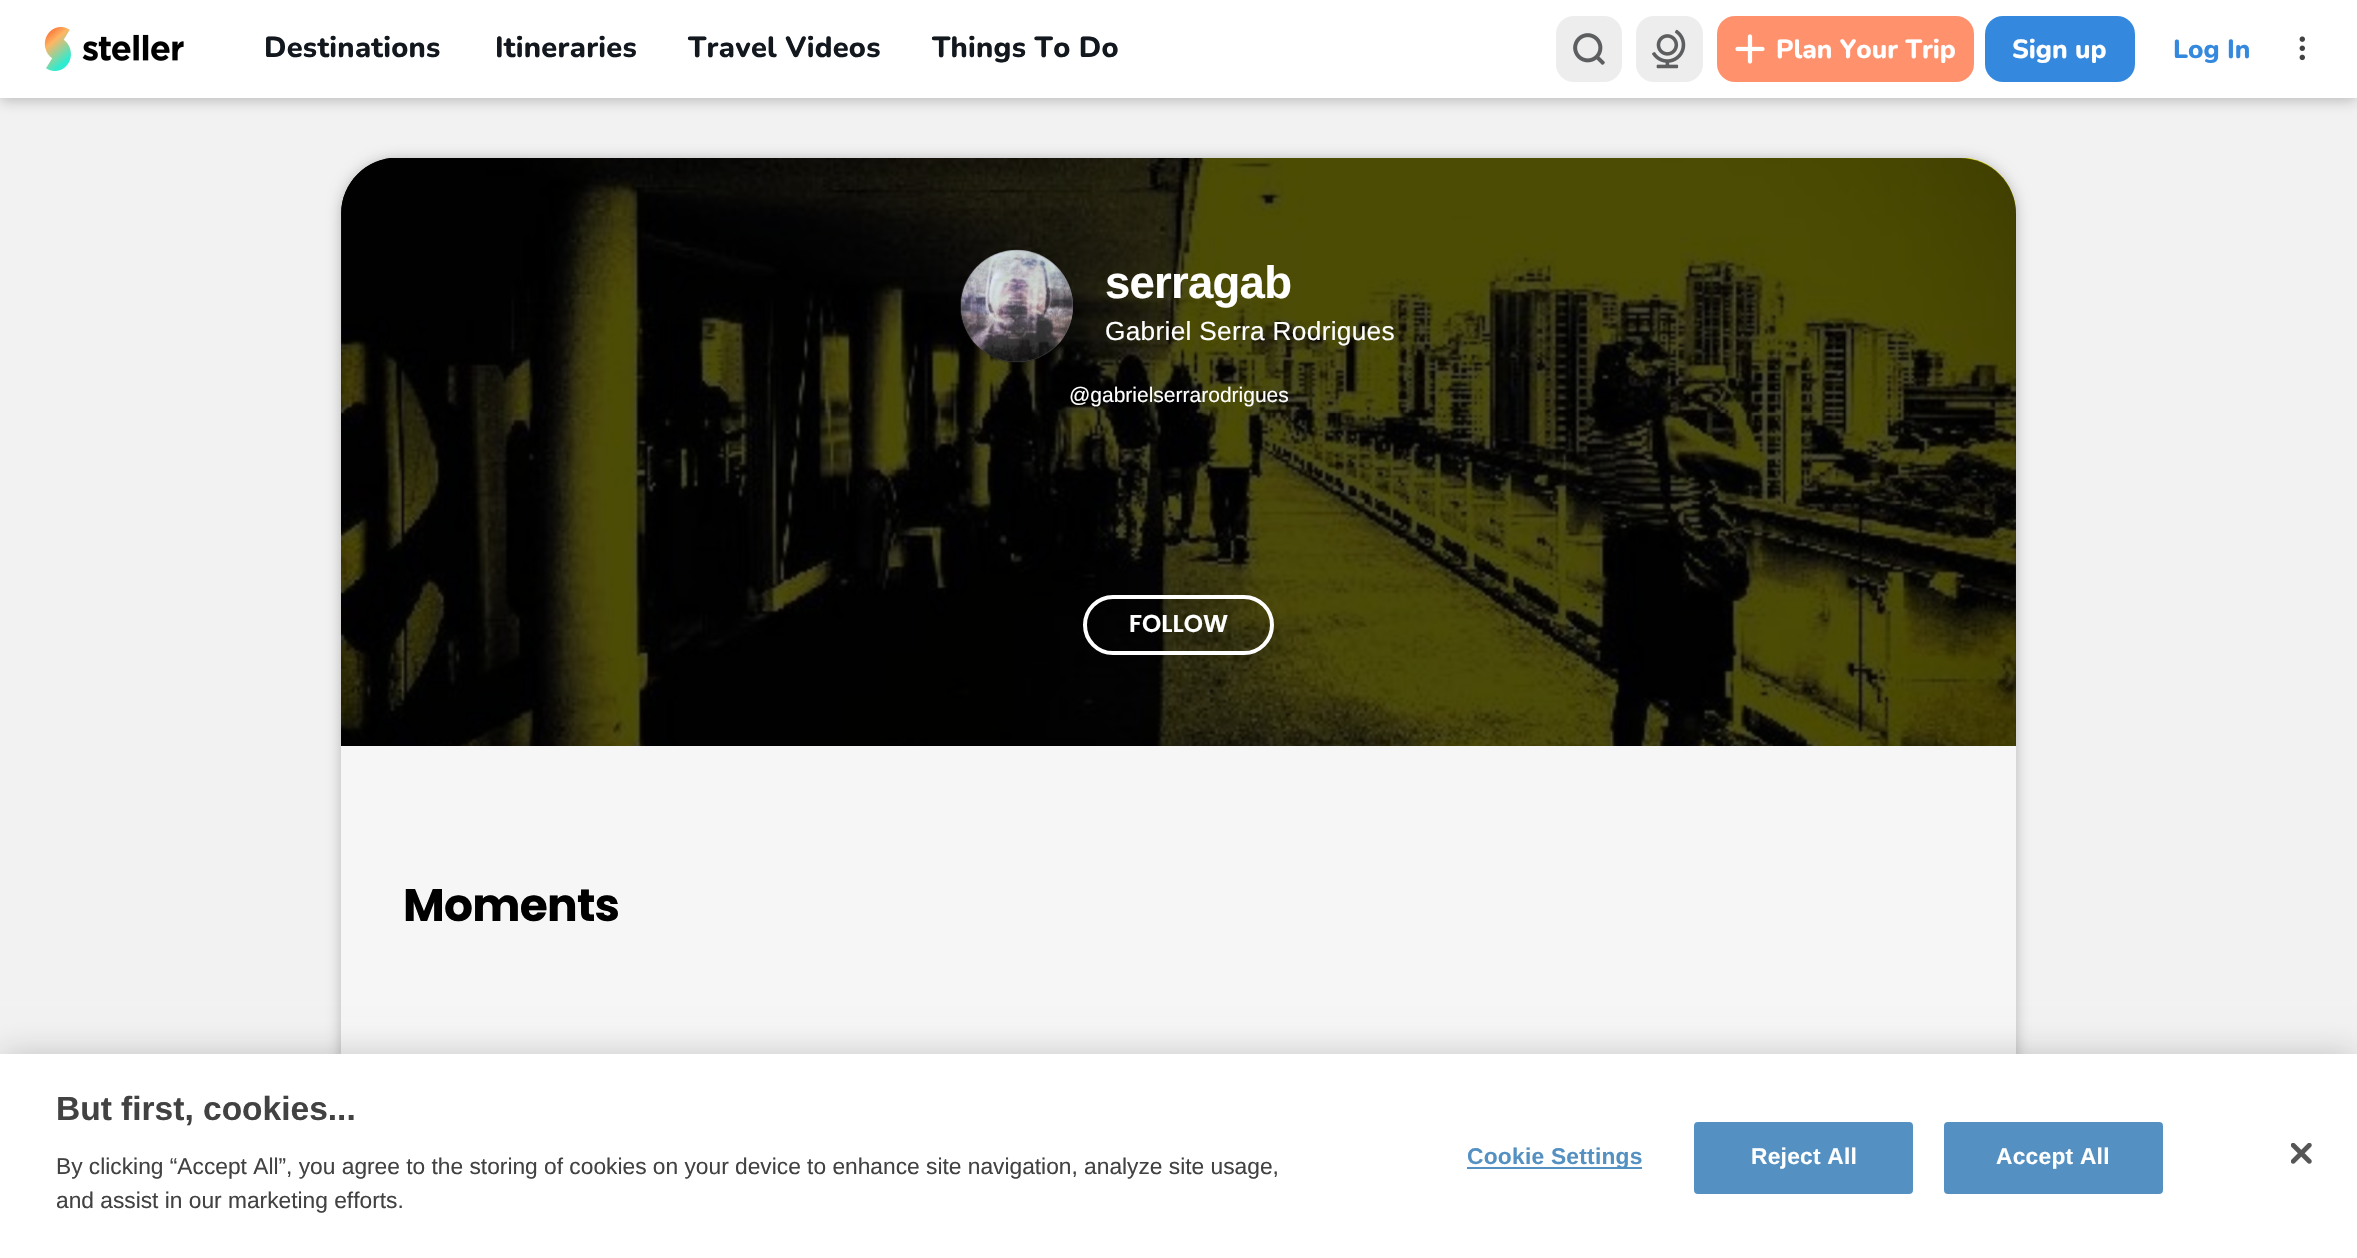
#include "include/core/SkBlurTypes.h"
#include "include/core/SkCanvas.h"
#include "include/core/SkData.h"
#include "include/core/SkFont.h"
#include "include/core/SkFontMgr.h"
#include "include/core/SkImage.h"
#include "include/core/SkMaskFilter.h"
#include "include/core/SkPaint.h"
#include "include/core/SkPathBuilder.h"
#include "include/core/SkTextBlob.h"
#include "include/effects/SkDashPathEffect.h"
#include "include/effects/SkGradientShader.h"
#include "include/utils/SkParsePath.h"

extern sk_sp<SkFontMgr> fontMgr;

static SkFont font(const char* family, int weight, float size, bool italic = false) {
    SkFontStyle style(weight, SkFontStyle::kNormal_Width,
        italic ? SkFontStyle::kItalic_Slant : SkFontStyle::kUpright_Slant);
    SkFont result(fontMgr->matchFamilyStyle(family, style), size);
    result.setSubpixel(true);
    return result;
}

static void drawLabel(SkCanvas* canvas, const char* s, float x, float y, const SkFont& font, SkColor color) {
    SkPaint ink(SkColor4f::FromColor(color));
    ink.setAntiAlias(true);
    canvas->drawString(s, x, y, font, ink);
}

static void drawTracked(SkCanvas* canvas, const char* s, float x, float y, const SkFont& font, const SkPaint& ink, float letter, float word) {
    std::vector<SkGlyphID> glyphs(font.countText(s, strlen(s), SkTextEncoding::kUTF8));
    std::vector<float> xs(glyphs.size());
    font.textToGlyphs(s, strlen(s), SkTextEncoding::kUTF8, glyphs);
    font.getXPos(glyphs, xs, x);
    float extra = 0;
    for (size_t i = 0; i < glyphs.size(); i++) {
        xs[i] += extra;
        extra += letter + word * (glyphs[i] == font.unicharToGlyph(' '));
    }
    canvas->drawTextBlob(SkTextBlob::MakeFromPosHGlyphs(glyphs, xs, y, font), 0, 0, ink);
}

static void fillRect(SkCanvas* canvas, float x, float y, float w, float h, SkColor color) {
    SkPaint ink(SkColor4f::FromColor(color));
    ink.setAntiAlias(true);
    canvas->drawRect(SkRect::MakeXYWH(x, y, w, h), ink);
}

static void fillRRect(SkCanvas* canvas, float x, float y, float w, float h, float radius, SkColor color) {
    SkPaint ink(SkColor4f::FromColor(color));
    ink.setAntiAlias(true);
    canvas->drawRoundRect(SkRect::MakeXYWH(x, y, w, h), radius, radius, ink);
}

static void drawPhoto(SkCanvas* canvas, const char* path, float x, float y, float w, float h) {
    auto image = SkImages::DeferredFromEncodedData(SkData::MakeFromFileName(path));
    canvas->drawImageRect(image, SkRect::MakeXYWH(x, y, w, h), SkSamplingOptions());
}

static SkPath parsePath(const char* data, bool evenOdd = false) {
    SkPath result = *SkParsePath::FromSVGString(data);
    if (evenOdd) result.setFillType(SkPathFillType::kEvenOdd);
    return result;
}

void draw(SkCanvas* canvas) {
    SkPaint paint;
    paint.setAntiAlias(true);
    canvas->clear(0xFFF2F2F2);
    paint.setColor(0x40000000);
    paint.setMaskFilter(SkMaskFilter::MakeBlur(kNormal_SkBlurStyle, 7));
    canvas->drawRect(SkRect::MakeXYWH(0, 2, 2357, 98), paint);
    paint.setMaskFilter(nullptr);
    fillRect(canvas, 0, 0, 2357, 98, 0xFFFFFFFF);
    drawPhoto(canvas, "assets/img1.png", 44, 27, 140, 44);
    SkFont font1 = font("Nunito", 800, 29);
    paint.setColor(0xFF12181E);
    drawTracked(canvas, "Destinations", 264, 57, font1, paint, 0.25f, 0);
    drawTracked(canvas, "Itineraries", 495, 57, font1, paint, 0.25f, 0);
    drawTracked(canvas, "Travel Videos", 688, 57, font1, paint, 0.25f, 0);
    drawTracked(canvas, "Things To Do", 932, 57, font1, paint, 0.25f, 0);
    fillRRect(canvas, 1556, 16, 66, 66, 18, 0xFFEDEDED);
    drawPhoto(canvas, "assets/img2.png", 1573, 33, 32, 32);
    fillRRect(canvas, 1636, 16, 67, 66, 18, 0xFFEDEDED);
    drawPhoto(canvas, "assets/img3.png", 1652, 29, 34, 40);
    fillRRect(canvas, 1717, 16, 257, 66, 18, 0xFFFF916D);
    drawPhoto(canvas, "assets/img4.png", 1735, 34, 30, 30);
    SkFont font2 = font("Nunito", 800, 26.25f);
    drawLabel(canvas, "Plan Your Trip", 1776, 58, font2, 0xFFFFFFFF);
    fillRRect(canvas, 1985, 16, 150, 66, 18, 0xFF3489DF);
    drawLabel(canvas, "Sign up", 2012, 58, font2, 0xFFFFFFFF);
    drawLabel(canvas, "Log In", 2173, 58, font2, 0xFF3489DF);
    drawPhoto(canvas, "assets/img5.png", 2299, 36, 6, 25);
    paint.setColor(0x40000000);
    paint.setMaskFilter(SkMaskFilter::MakeBlur(kNormal_SkBlurStyle, 7));
    canvas->drawRoundRect(SkRect::MakeXYWH(341, 159, 1675, 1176), 56, 56, paint);
    paint.setMaskFilter(nullptr);
    paint.setColor(0xFFF6F6F6);
    canvas->drawPath(parsePath("M397 158H1960C1991 158 2016 183 2016 214V1258H341V214C341 183 366 158 397 158Z"), paint);
    paint.setColor(0xFF706E38);
    canvas->drawPath(parsePath("M397 158H1960C1991 158 2016 183 2016 214V746H341V214C341 183 366 158 397 158Z"), paint);
    drawPhoto(canvas, "assets/img6.png", 341, 158, 1675, 588);
    paint.setColor(0xB3000000);
    canvas->drawPath(parsePath("M397 158H1960C1991 158 2016 183 2016 214V746H341V214C341 183 366 158 397 158Z"), paint);
    paint.setColor(0xFF827F85);
    canvas->drawCircle(1017, 306, 56, paint);
    drawPhoto(canvas, "assets/img7.png", 960, 249, 113, 114);
    SkFont font3 = font("Liberation Sans", 700, 45.5f);
    paint.setColor(0xFFFFFFFF);
    drawTracked(canvas, "serragab", 1105, 298, font3, paint, -0.75f, 0);
    SkFont font4 = font("Liberation Sans", 400, 26.25f);
    drawTracked(canvas, "Gabriel Serra Rodrigues", 1105, 340, font4, paint, 0.3f, 0);
    SkFont font5 = font("Liberation Sans", 400, 21);
    drawLabel(canvas, "@gabrielserrarodrigues", 1069, 402, font5, 0xFFFFFFFF);
    paint.setStroke(true);
    paint.setStrokeWidth(4);
    canvas->drawRoundRect(SkRect::MakeXYWH(1085, 597, 187, 56), 28, 28, paint);
    SkFont font6 = font("Poppins", 600, 24.5f);
    drawLabel(canvas, "FOLLOW", 1129, 632, font6, 0xFFFFFFFF);
    SkFont font7 = font("Poppins", 700, 45.5f);
    paint.setStroke(false);
    paint.setColor(0xFF000000);
    drawTracked(canvas, "Moments", 403, 921, font7, paint, -0.75f, 0);
    paint.setColor(0x33000000);
    paint.setMaskFilter(SkMaskFilter::MakeBlur(kNormal_SkBlurStyle, 16));
    canvas->drawRect(SkRect::MakeXYWH(0, 1054, 2357, 204), paint);
    paint.setMaskFilter(nullptr);
    fillRect(canvas, 0, 1054, 2357, 204, 0xFFFFFFFF);
    SkFont font8 = font("Liberation Sans", 700, 33.5f);
    drawLabel(canvas, "But first, cookies...", 56, 1120, font8, 0xFF424242);
    SkFont font9 = font("Liberation Sans", 400, 22.75f);
    drawLabel(canvas, "By clicking “Accept All”, you agree to the storing of cookies on your device to enhance site navigation, analyze site usage,", 56, 1174, font9, 0xFF424242);
    drawLabel(canvas, "and assist in our marketing efforts.", 56, 1208, font9, 0xFF424242);
    fillRect(canvas, 1467, 1167, 175, 2, 0xFF5491C2);
    SkFont font10 = font("Liberation Sans", 700, 22.75f);
    paint.setColor(0xFF5491C2);
    drawTracked(canvas, "Cookie Settings", 1467, 1164, font10, paint, 0.25f, 0);
    canvas->drawRoundRect(SkRect::MakeXYWH(1695, 1123, 217, 70), 3, 3, paint);
    paint.setStroke(true);
    paint.setStrokeWidth(2);
    canvas->drawRoundRect(SkRect::MakeXYWH(1695, 1123, 217, 70), 3, 3, paint);
    paint.setStroke(false);
    paint.setColor(0xFFFFFFFF);
    drawTracked(canvas, "Reject All", 1751, 1164, font10, paint, 0.25f, 0);
    paint.setColor(0xFF5491C2);
    canvas->drawRoundRect(SkRect::MakeXYWH(1945, 1123, 217, 70), 3, 3, paint);
    paint.setStroke(true);
    canvas->drawRoundRect(SkRect::MakeXYWH(1945, 1123, 217, 70), 3, 3, paint);
    paint.setStroke(false);
    paint.setColor(0xFFFFFFFF);
    drawTracked(canvas, "Accept All", 1996, 1164, font10, paint, 0.25f, 0);
    drawPhoto(canvas, "assets/img8.png", 2291, 1143, 21, 21);
}
